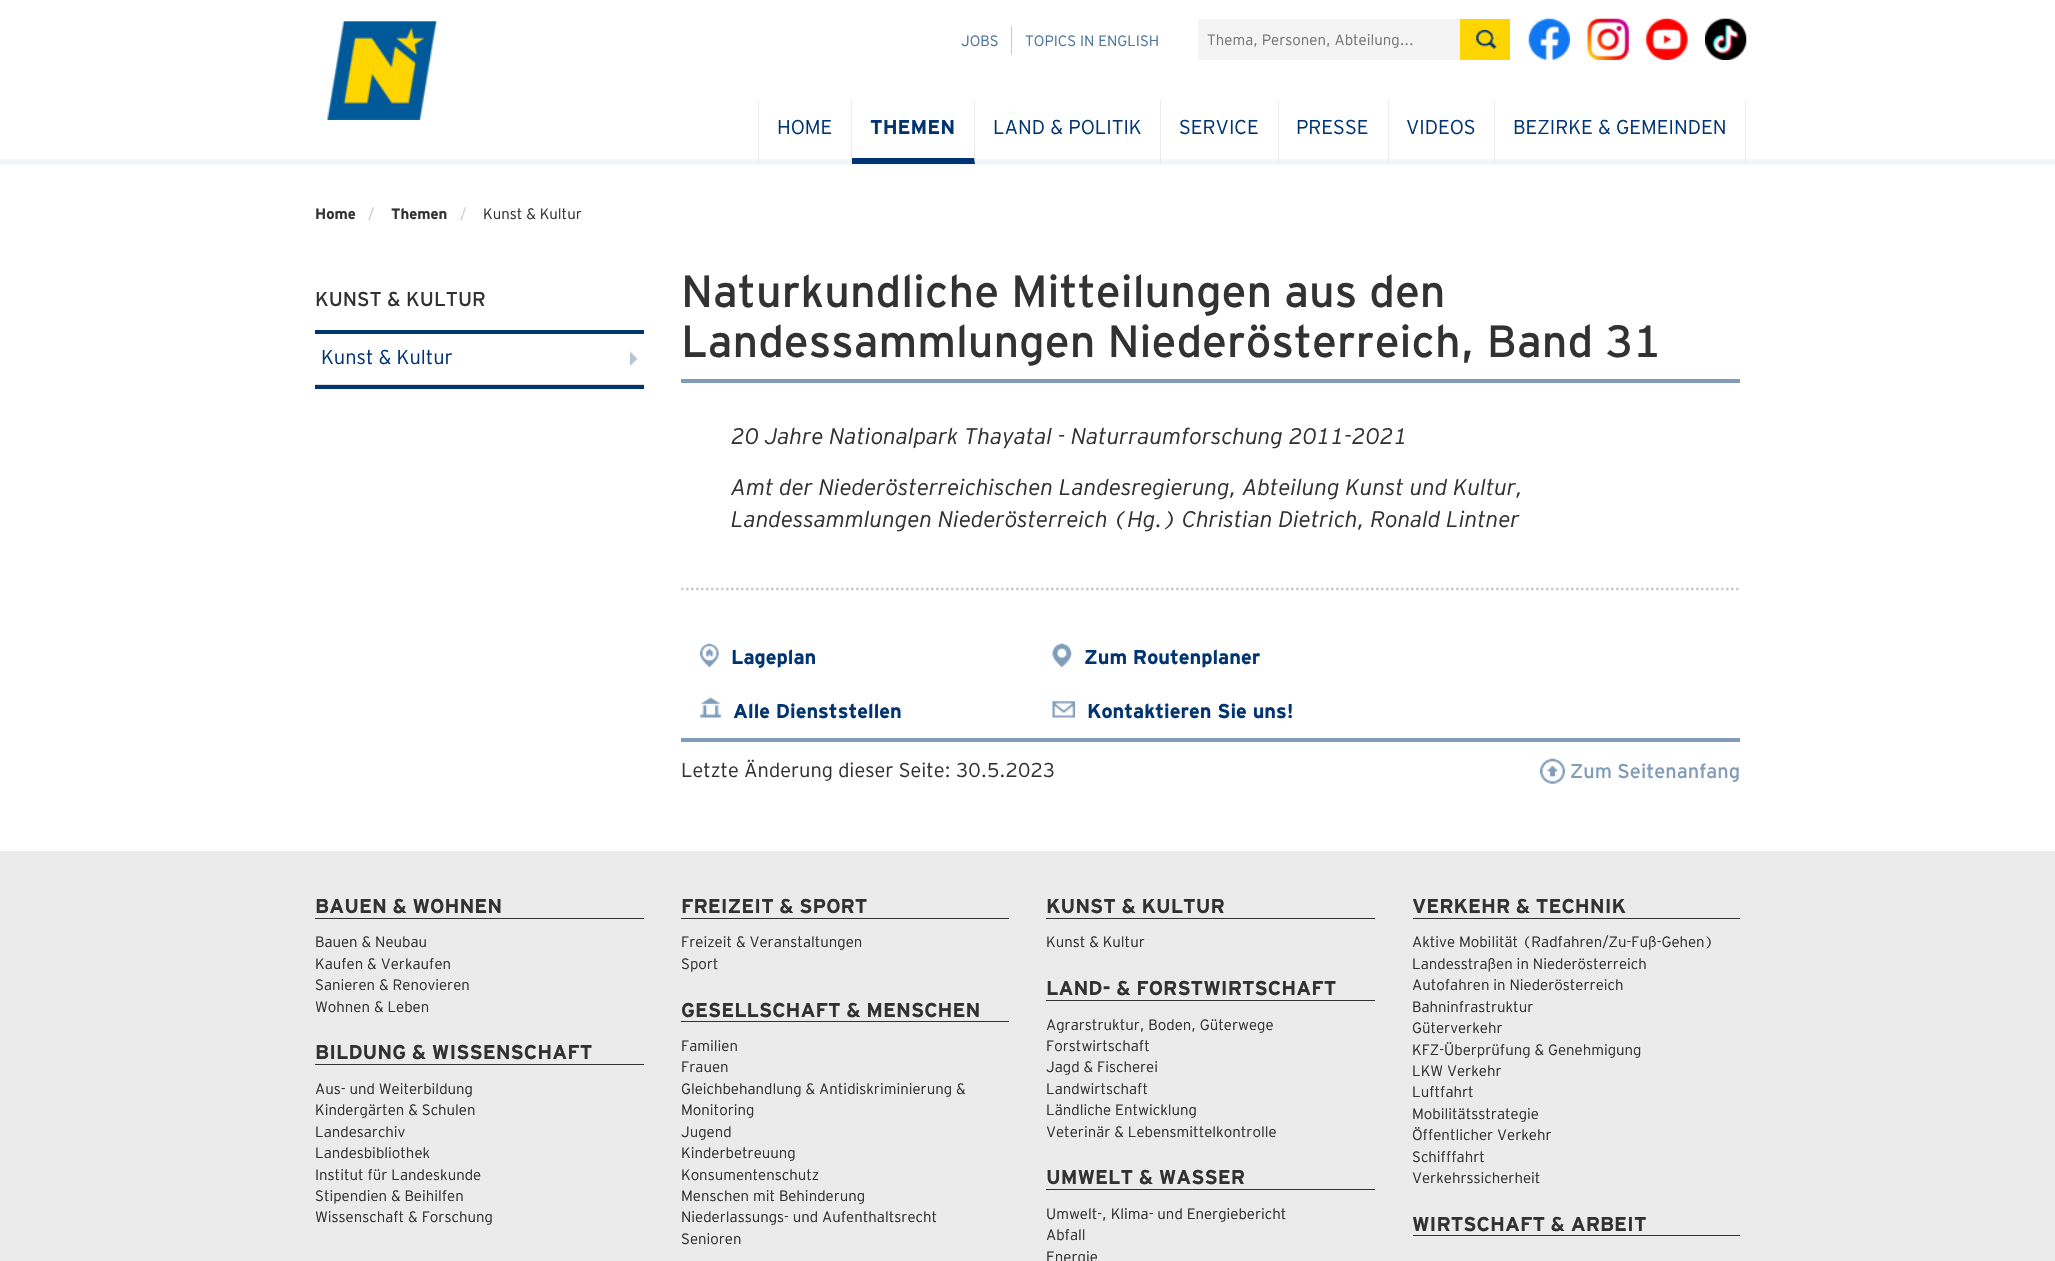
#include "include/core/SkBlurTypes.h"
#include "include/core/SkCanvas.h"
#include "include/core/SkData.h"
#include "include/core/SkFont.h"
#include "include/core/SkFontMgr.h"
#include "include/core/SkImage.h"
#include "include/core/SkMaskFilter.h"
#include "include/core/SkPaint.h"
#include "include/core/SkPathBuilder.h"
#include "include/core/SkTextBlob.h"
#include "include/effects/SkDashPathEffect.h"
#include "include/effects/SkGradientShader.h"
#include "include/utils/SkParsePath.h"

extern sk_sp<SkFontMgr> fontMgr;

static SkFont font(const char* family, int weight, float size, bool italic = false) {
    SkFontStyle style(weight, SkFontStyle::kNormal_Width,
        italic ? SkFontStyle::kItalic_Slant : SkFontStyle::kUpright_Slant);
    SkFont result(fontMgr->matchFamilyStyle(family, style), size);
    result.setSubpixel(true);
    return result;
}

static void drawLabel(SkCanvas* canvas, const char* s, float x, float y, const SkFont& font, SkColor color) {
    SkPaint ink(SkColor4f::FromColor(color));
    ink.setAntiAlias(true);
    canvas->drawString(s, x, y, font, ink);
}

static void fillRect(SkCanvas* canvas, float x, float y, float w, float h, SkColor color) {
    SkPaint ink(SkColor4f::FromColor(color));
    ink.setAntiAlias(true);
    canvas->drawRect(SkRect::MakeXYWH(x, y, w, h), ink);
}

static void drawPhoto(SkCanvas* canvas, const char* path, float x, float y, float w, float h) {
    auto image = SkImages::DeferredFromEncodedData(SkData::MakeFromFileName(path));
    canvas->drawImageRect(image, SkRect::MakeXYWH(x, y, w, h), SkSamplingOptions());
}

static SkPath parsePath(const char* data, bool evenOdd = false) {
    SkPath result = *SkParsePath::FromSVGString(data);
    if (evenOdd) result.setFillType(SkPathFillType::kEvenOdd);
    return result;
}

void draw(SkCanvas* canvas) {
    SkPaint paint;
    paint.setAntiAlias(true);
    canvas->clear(0xFFFFFFFF);
    fillRect(canvas, 0, 159, 2055, 6, 0xFFF2F6F9);
    drawPhoto(canvas, "assets/img1.png", 327, 21, 110, 99);
    SkFont font1 = font("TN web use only", 300, 15);
    drawLabel(canvas, "JOBS", 961, 46, font1, 0xFF4C739B);
    fillRect(canvas, 1011, 26, 1, 29, 0xFFCCCCCC);
    drawLabel(canvas, "TOPICS IN ENGLISH", 1025, 46, font1, 0xFF4C739B);
    fillRect(canvas, 1198, 19, 262, 41, 0xFFF4F4F4);
    drawLabel(canvas, "Thema, Personen, Abteilung...", 1207, 45, font1, 0xFF757575);
    fillRect(canvas, 1460, 19, 50, 41, 0xFFFFD500);
    drawPhoto(canvas, "assets/img2.png", 1476, 30, 21, 19);
    drawPhoto(canvas, "assets/img3.png", 1528, 18, 42, 42);
    drawPhoto(canvas, "assets/img4.png", 1587, 18, 42, 42);
    drawPhoto(canvas, "assets/img5.png", 1646, 18, 42, 42);
    drawPhoto(canvas, "assets/img6.png", 1705, 18, 42, 42);
    fillRect(canvas, 851, 100, 1, 64, 0xFFEBEBEB);
    fillRect(canvas, 758, 100, 1, 64, 0xFFEBEBEB);
    SkFont font2 = font("TN web use only", 300, 20);
    drawLabel(canvas, "HOME", 777, 134, font2, 0xFF003572);
    paint.setColor(0xFFEBEBEB);
    canvas->drawPath(parsePath("M975 100V164L974 158V100Z"), paint);
    paint.setColor(0xFF003572);
    canvas->drawPath(parsePath("M975 164H852V158H974Z"), paint);
    SkFont font3 = font("TN web use only", 700, 20);
    drawLabel(canvas, "THEMEN", 870, 134, font3, 0xFF003572);
    fillRect(canvas, 1160, 100, 1, 64, 0xFFEBEBEB);
    drawLabel(canvas, "LAND & POLITIK", 993, 134, font2, 0xFF003572);
    fillRect(canvas, 1278, 100, 1, 64, 0xFFEBEBEB);
    drawLabel(canvas, "SERVICE", 1179, 134, font2, 0xFF003572);
    fillRect(canvas, 1388, 100, 1, 64, 0xFFEBEBEB);
    drawLabel(canvas, "PRESSE", 1296, 134, font2, 0xFF003572);
    fillRect(canvas, 1494, 100, 1, 64, 0xFFEBEBEB);
    drawLabel(canvas, "VIDEOS", 1406, 134, font2, 0xFF003572);
    fillRect(canvas, 1745, 100, 1, 64, 0xFFEBEBEB);
    drawLabel(canvas, "BEZIRKE & GEMEINDEN", 1513, 134, font2, 0xFF003572);
    SkFont font4 = font("TN web use only", 700, 15);
    drawLabel(canvas, "Home", 315, 219, font4, 0xFF323232);
    drawLabel(canvas, "/", 368, 219, font1, 0xFFCCCCCC);
    drawLabel(canvas, "Themen", 391, 219, font4, 0xFF323232);
    drawLabel(canvas, "/", 460, 219, font1, 0xFFCCCCCC);
    drawLabel(canvas, "Kunst & Kultur", 483, 219, font1, 0xFF323232);
    SkFont font5 = font("TN web use only", 400, 20);
    drawLabel(canvas, "KUNST & KULTUR", 315, 306, font5, 0xFF323232);
    fillRect(canvas, 315, 330, 329, 4, 0xFF003572);
    fillRect(canvas, 315, 385, 329, 4, 0xFF003572);
    fillRect(canvas, 315, 384, 329, 1, 0xFFDDDDDD);
    drawLabel(canvas, "Kunst & Kultur", 321, 364, font2, 0xFF003572);
    drawPhoto(canvas, "assets/img7.png", 630, 351, 8, 16);
    fillRect(canvas, 681, 379, 1059, 4, 0xFF809CB8);
    SkFont font6 = font("TN web use only", 400, 45);
    drawLabel(canvas, "Naturkundliche Mitteilungen aus den", 681, 307, font6, 0xFF323232);
    drawLabel(canvas, "Landessammlungen Niederösterreich, Band 31", 681, 357, font6, 0xFF323232);
    paint.setStroke(true);
    paint.setStrokeWidth(2.5f);
    paint.setColor(0xFFCCCCCC);
    paint.setPathEffect(SkDashPathEffect::Make({{2.5f, 2.5f}}, 0));
    canvas->drawPath(parsePath("M681 589H1740"), paint);
    paint.setPathEffect(nullptr);
    SkFont font7 = font("TN web use only", 300, 22.5f, true);
    drawLabel(canvas, "20 Jahre Nationalpark Thayatal - Naturraumforschung 2011-2021", 731, 444, font7, 0xFF323232);
    drawLabel(canvas, "Amt der Niederösterreichischen Landesregierung, Abteilung Kunst und Kultur,", 731, 495, font7, 0xFF323232);
    drawLabel(canvas, "Landessammlungen Niederösterreich (Hg.) Christian Dietrich, Ronald Lintner", 731, 527, font7, 0xFF323232);
    drawPhoto(canvas, "assets/img8.png", 700, 643, 19, 25);
    drawLabel(canvas, "Lageplan", 731, 664, font3, 0xFF003572);
    drawPhoto(canvas, "assets/img9.png", 1052, 643, 20, 25);
    drawLabel(canvas, "Zum Routenplaner", 1084, 664, font3, 0xFF003572);
    drawPhoto(canvas, "assets/img10.png", 700, 697, 22, 21);
    drawLabel(canvas, "Alle Dienststellen", 733, 718, font3, 0xFF003572);
    drawPhoto(canvas, "assets/img11.png", 1052, 701, 23, 17);
    drawLabel(canvas, "Kontaktieren Sie uns!", 1087, 718, font3, 0xFF003572);
    fillRect(canvas, 681, 738, 1059, 4, 0xFF809CB8);
    drawLabel(canvas, "Letzte Änderung dieser Seite: 30.5.2023", 681, 777, font2, 0xFF323232);
    drawPhoto(canvas, "assets/img12.png", 1540, 758, 25, 26);
    drawLabel(canvas, "Zum Seitenanfang", 1570, 778, font5, 0xFF809CB8);
    fillRect(canvas, 0, 851, 2055, 410, 0xFFEBEBEB);
    fillRect(canvas, 315, 918, 329, 1, 0xFF323232);
    drawLabel(canvas, "BAUEN & WOHNEN", 315, 913, font3, 0xFF323232);
    drawLabel(canvas, "Bauen & Neubau", 315, 947, font1, 0xFF323232);
    drawLabel(canvas, "Kaufen & Verkaufen", 315, 969, font1, 0xFF323232);
    drawLabel(canvas, "Sanieren & Renovieren", 315, 990, font1, 0xFF323232);
    drawLabel(canvas, "Wohnen & Leben", 315, 1012, font1, 0xFF323232);
    fillRect(canvas, 315, 1064, 329, 1, 0xFF323232);
    drawLabel(canvas, "BILDUNG & WISSENSCHAFT", 315, 1059, font3, 0xFF323232);
    drawLabel(canvas, "Aus- und Weiterbildung", 315, 1094, font1, 0xFF323232);
    drawLabel(canvas, "Kindergärten & Schulen", 315, 1115, font1, 0xFF323232);
    drawLabel(canvas, "Landesarchiv", 315, 1137, font1, 0xFF323232);
    drawLabel(canvas, "Landesbibliothek", 315, 1158, font1, 0xFF323232);
    drawLabel(canvas, "Institut für Landeskunde", 315, 1180, font1, 0xFF323232);
    drawLabel(canvas, "Stipendien & Beihilfen", 315, 1201, font1, 0xFF323232);
    drawLabel(canvas, "Wissenschaft & Forschung", 315, 1222, font1, 0xFF323232);
    fillRect(canvas, 681, 918, 328, 1, 0xFF323232);
    drawLabel(canvas, "FREIZEIT & SPORT", 681, 913, font3, 0xFF323232);
    drawLabel(canvas, "Freizeit & Veranstaltungen", 681, 947, font1, 0xFF323232);
    drawLabel(canvas, "Sport", 681, 969, font1, 0xFF323232);
    fillRect(canvas, 681, 1021, 328, 1, 0xFF323232);
    drawLabel(canvas, "GESELLSCHAFT & MENSCHEN", 681, 1017, font3, 0xFF323232);
    drawLabel(canvas, "Familien", 681, 1051, font1, 0xFF323232);
    drawLabel(canvas, "Frauen", 681, 1072, font1, 0xFF323232);
    drawLabel(canvas, "Gleichbehandlung & Antidiskriminierung &", 681, 1094, font1, 0xFF323232);
    drawLabel(canvas, "Monitoring", 681, 1115, font1, 0xFF323232);
    drawLabel(canvas, "Jugend", 681, 1137, font1, 0xFF323232);
    drawLabel(canvas, "Kinderbetreuung", 681, 1158, font1, 0xFF323232);
    drawLabel(canvas, "Konsumentenschutz", 681, 1180, font1, 0xFF323232);
    drawLabel(canvas, "Menschen mit Behinderung", 681, 1201, font1, 0xFF323232);
    drawLabel(canvas, "Niederlassungs- und Aufenthaltsrecht", 681, 1222, font1, 0xFF323232);
    drawLabel(canvas, "Senioren", 681, 1244, font1, 0xFF323232);
    fillRect(canvas, 1046, 918, 329, 1, 0xFF323232);
    drawLabel(canvas, "KUNST & KULTUR", 1046, 913, font3, 0xFF323232);
    drawLabel(canvas, "Kunst & Kultur", 1046, 947, font1, 0xFF323232);
    fillRect(canvas, 1046, 1000, 329, 1, 0xFF323232);
    drawLabel(canvas, "LAND- & FORSTWIRTSCHAFT", 1046, 995, font3, 0xFF323232);
    drawLabel(canvas, "Agrarstruktur, Boden, Güterwege", 1046, 1030, font1, 0xFF323232);
    drawLabel(canvas, "Forstwirtschaft", 1046, 1051, font1, 0xFF323232);
    drawLabel(canvas, "Jagd & Fischerei", 1046, 1072, font1, 0xFF323232);
    drawLabel(canvas, "Landwirtschaft", 1046, 1094, font1, 0xFF323232);
    drawLabel(canvas, "Ländliche Entwicklung", 1046, 1115, font1, 0xFF323232);
    drawLabel(canvas, "Veterinär & Lebensmittelkontrolle", 1046, 1137, font1, 0xFF323232);
    fillRect(canvas, 1046, 1189, 329, 1, 0xFF323232);
    drawLabel(canvas, "UMWELT & WASSER", 1046, 1184, font3, 0xFF323232);
    drawLabel(canvas, "Umwelt-, Klima- und Energiebericht", 1046, 1219, font1, 0xFF323232);
    drawLabel(canvas, "Abfall", 1046, 1240, font1, 0xFF323232);
    drawLabel(canvas, "Energie", 1046, 1262, font1, 0xFF323232);
    fillRect(canvas, 1413, 918, 327, 1, 0xFF323232);
    drawLabel(canvas, "VERKEHR & TECHNIK", 1412, 913, font3, 0xFF323232);
    drawLabel(canvas, "Aktive Mobilität (Radfahren/Zu-Fuß-Gehen)", 1412, 947, font1, 0xFF323232);
    drawLabel(canvas, "Landesstraßen in Niederösterreich", 1412, 969, font1, 0xFF323232);
    drawLabel(canvas, "Autofahren in Niederösterreich", 1412, 990, font1, 0xFF323232);
    drawLabel(canvas, "Bahninfrastruktur", 1412, 1012, font1, 0xFF323232);
    drawLabel(canvas, "Güterverkehr", 1412, 1033, font1, 0xFF323232);
    drawLabel(canvas, "KFZ-Überprüfung & Genehmigung", 1412, 1055, font1, 0xFF323232);
    drawLabel(canvas, "LKW Verkehr", 1412, 1076, font1, 0xFF323232);
    drawLabel(canvas, "Luftfahrt", 1412, 1097, font1, 0xFF323232);
    drawLabel(canvas, "Mobilitätsstrategie", 1412, 1119, font1, 0xFF323232);
    drawLabel(canvas, "Öffentlicher Verkehr", 1412, 1140, font1, 0xFF323232);
    drawLabel(canvas, "Schifffahrt", 1412, 1162, font1, 0xFF323232);
    drawLabel(canvas, "Verkehrssicherheit", 1412, 1183, font1, 0xFF323232);
    fillRect(canvas, 1413, 1235, 327, 1, 0xFF323232);
    drawLabel(canvas, "WIRTSCHAFT & ARBEIT", 1412, 1231, font3, 0xFF323232);
}
